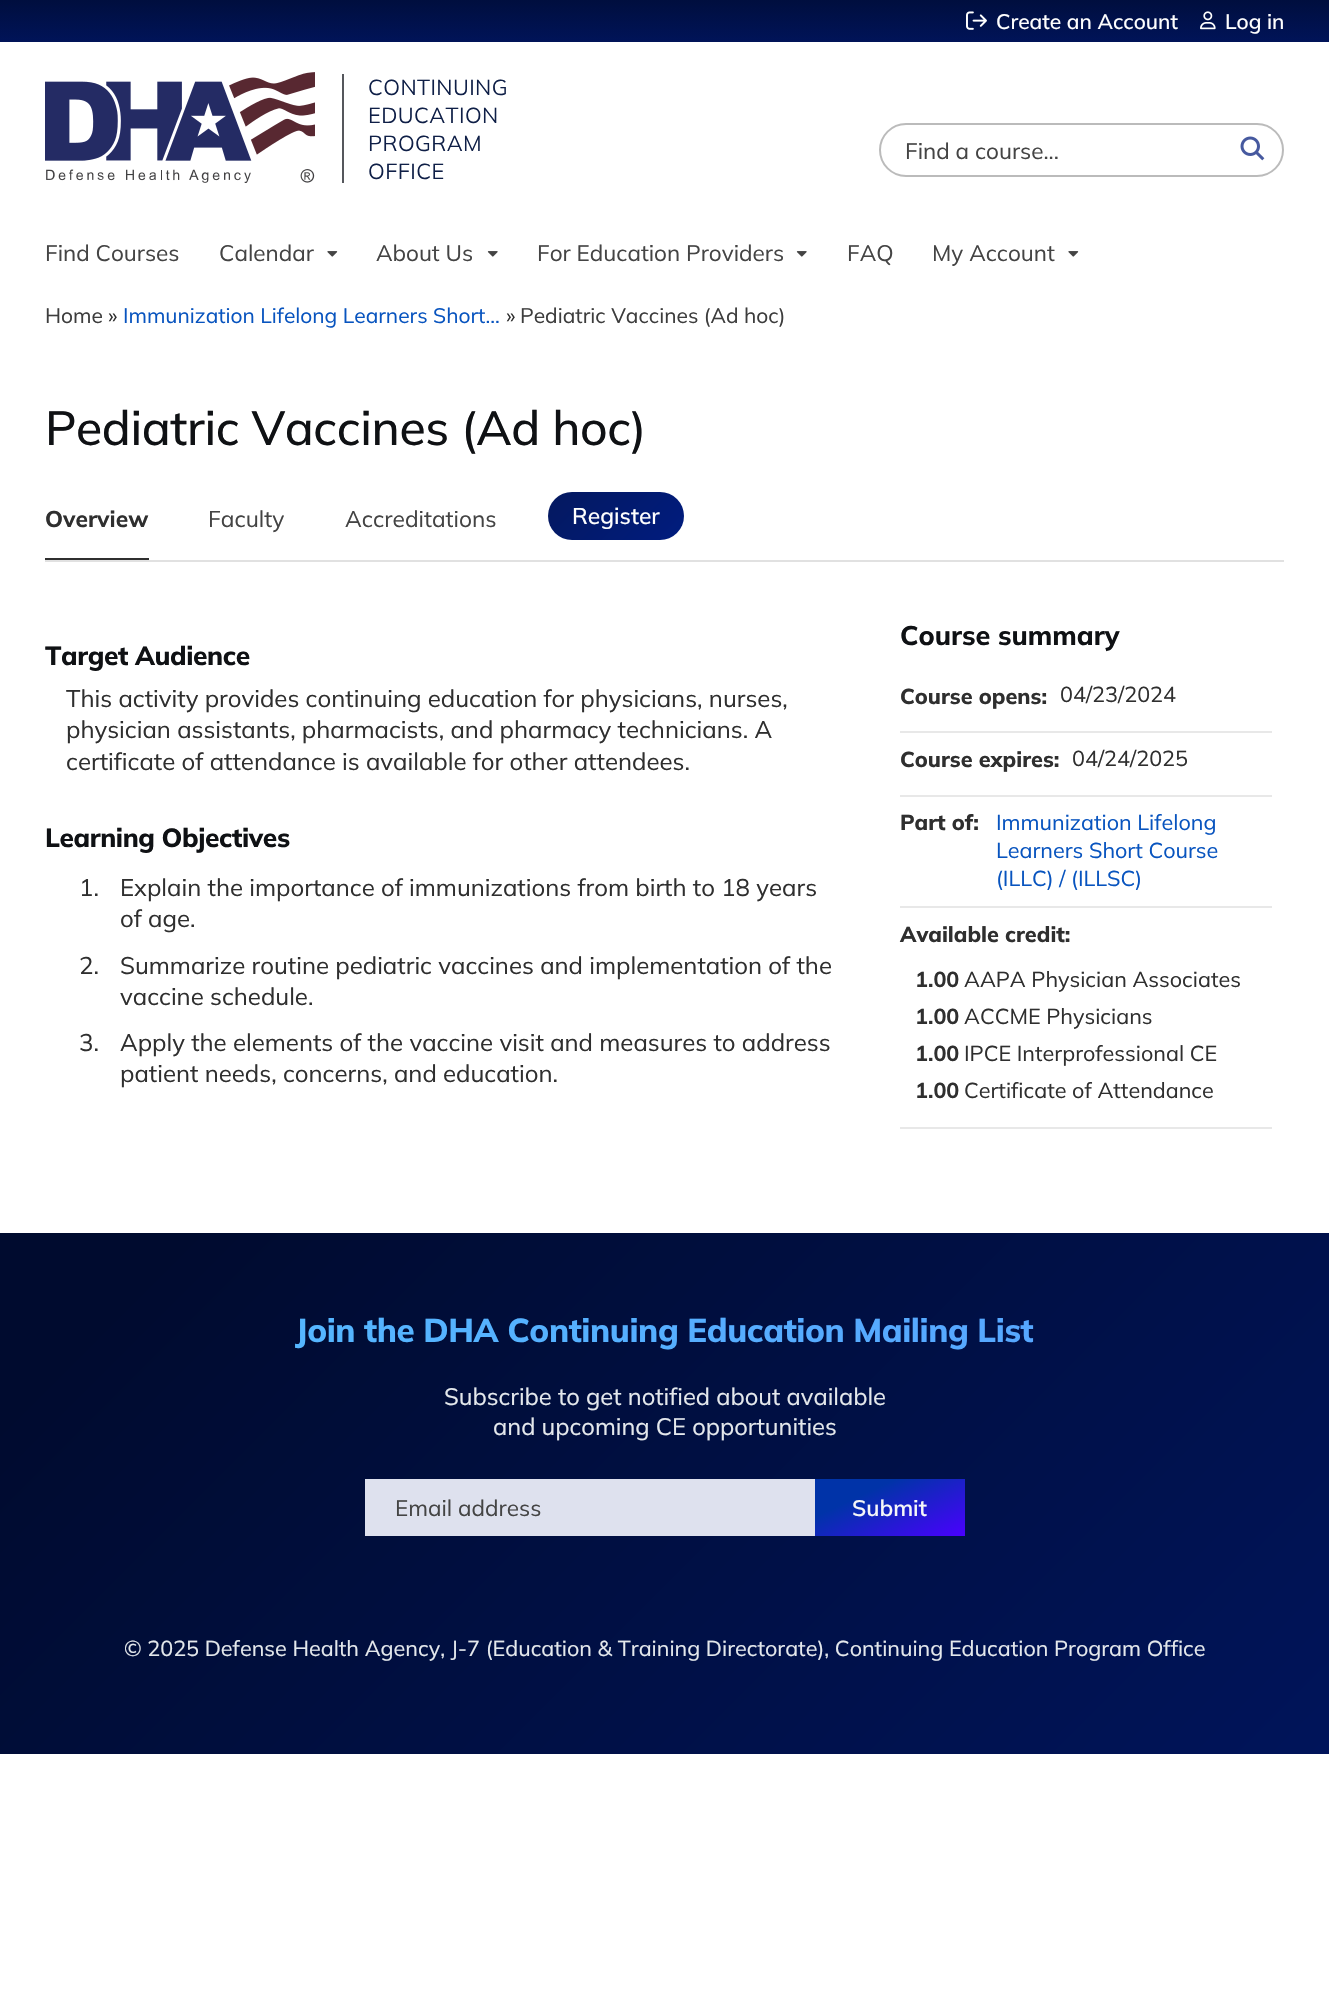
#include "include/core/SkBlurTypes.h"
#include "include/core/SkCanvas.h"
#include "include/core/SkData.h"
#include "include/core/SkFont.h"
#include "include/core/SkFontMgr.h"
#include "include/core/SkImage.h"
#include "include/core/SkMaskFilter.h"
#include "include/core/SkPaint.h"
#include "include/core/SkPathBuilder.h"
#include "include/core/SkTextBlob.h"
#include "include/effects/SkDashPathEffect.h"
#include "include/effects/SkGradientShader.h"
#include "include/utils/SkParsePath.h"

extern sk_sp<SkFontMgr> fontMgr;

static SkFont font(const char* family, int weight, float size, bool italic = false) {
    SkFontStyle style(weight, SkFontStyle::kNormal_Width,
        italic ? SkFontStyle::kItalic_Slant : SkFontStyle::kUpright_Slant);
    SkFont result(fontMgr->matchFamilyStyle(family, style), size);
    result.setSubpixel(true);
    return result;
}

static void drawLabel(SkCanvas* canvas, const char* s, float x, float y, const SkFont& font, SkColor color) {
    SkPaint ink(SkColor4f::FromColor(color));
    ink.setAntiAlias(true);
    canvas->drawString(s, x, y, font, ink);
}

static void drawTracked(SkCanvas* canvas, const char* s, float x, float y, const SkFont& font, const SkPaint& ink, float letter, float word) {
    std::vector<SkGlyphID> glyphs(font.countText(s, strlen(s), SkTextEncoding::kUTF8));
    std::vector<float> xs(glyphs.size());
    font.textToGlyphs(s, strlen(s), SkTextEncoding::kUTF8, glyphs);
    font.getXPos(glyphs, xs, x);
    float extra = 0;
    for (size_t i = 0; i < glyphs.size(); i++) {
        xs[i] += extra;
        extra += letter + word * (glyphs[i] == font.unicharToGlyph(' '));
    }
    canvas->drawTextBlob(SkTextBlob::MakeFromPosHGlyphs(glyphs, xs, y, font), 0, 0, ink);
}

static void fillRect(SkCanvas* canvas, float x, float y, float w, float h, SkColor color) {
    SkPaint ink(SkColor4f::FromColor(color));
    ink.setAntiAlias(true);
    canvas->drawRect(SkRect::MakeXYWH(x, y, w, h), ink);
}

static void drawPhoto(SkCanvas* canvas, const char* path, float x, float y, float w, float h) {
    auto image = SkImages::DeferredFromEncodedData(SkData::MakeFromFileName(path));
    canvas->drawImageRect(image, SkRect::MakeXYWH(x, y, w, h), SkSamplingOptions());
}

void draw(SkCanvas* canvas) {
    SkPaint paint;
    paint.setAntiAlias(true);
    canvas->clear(0xFFFFFFFF);
    drawPhoto(canvas, "assets/img1.png", 0, 0, 1329, 42);
    drawPhoto(canvas, "assets/img2.png", 45, 72, 270, 111);
    fillRect(canvas, 342, 74, 2, 109, 0xFF55575C);
    SkFont font1 = font("Mulish", 300, 21.75f);
    paint.setColor(0xFF0F1F47);
    drawTracked(canvas, "CONTINUING", 368, 95, font1, paint, 0.4f, 0);
    drawTracked(canvas, "EDUCATION", 368, 123, font1, paint, 0.4f, 0);
    drawTracked(canvas, "PROGRAM", 368, 151, font1, paint, 0.4f, 0);
    drawTracked(canvas, "OFFICE", 368, 179, font1, paint, 0.4f, 0);
    drawPhoto(canvas, "assets/img3.png", 966, 11, 21, 19);
    SkFont font2 = font("Mulish", 500, 21);
    drawLabel(canvas, "Create an Account", 996, 29, font2, 0xFFFFFFFF);
    drawPhoto(canvas, "assets/img4.png", 1200, 11, 16, 19);
    drawLabel(canvas, "Log in", 1225, 29, font2, 0xFFFFFFFF);
    paint.setStroke(true);
    paint.setStrokeWidth(2);
    paint.setColor(0xFFBBBBBB);
    canvas->drawRoundRect(SkRect::MakeXYWH(880, 124, 403, 52), 26, 26, paint);
    SkFont font3 = font("Mulish", 400, 22.5f);
    drawLabel(canvas, "Find a course...", 905, 159, font3, 0xFF444444);
    drawPhoto(canvas, "assets/img5.png", 1240, 136, 25, 25);
    drawLabel(canvas, "Find Courses", 45, 261, font3, 0xFF444444);
    drawLabel(canvas, "Calendar", 219, 261, font3, 0xFF444444);
    drawPhoto(canvas, "assets/img6.png", 327, 251, 11, 6);
    drawLabel(canvas, "About Us", 376, 261, font3, 0xFF444444);
    drawPhoto(canvas, "assets/img7.png", 487, 251, 11, 6);
    drawLabel(canvas, "For Education Providers", 537, 261, font3, 0xFF444444);
    drawPhoto(canvas, "assets/img7.png", 796, 251, 11, 6);
    drawLabel(canvas, "FAQ", 847, 261, font3, 0xFF444444);
    drawLabel(canvas, "My Account", 932, 261, font3, 0xFF444444);
    drawPhoto(canvas, "assets/img6.png", 1068, 251, 11, 6);
    SkFont font4 = font("Mulish", 400, 21);
    drawLabel(canvas, "Home", 45, 323, font4, 0xFF3D3D3D);
    drawLabel(canvas, "»", 108, 323, font4, 0xFF2F2F2F);
    drawLabel(canvas, "Immunization Lifelong Learners Short...", 123, 323, font4, 0xFF0854BF);
    drawLabel(canvas, "»", 506, 323, font4, 0xFF2F2F2F);
    drawLabel(canvas, "Pediatric Vaccines (Ad hoc)", 520, 323, font4, 0xFF3D3D3D);
    SkFont font5 = font("Mulish", 500, 48);
    paint.setStroke(false);
    paint.setColor(0xFF0F1114);
    drawTracked(canvas, "Pediatric Vaccines (Ad hoc)", 45, 445, font5, paint, -0.4f, 0);
    fillRect(canvas, 45, 560, 1239, 2, 0xFFE1E1E1);
    fillRect(canvas, 45, 558, 104, 2, 0xFF2F2F2F);
    SkFont font6 = font("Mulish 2", 700, 22.75f);
    drawLabel(canvas, "Overview", 45, 527, font6, 0xFF2F2F2F);
    SkFont font7 = font("Mulish", 400, 22.75f);
    drawLabel(canvas, "Faculty", 208, 527, font7, 0xFF444444);
    drawLabel(canvas, "Accreditations", 345, 527, font7, 0xFF444444);
    {
        const SkColor colors[] = {0xFF041962, 0xFF001C7F};
        const float stops[] = {0.1f, 1};
        const SkPoint ends[] = {{570, 470}, {662, 562}};
        paint.setShader(SkGradientShader::MakeLinear(ends, colors, stops, 2, SkTileMode::kClamp));
        paint.setAlpha(255);
    }
    canvas->drawRoundRect(SkRect::MakeXYWH(548, 492, 136, 48), 24, 24, paint);
    SkFont font8 = font("Mulish", 500, 22.75f);
    drawLabel(canvas, "Register", 572, 524, font8, 0xFFFFFFFF);
    SkFont font9 = font("Mulish", 800, 26.25f);
    paint.setShader(nullptr);
    paint.setColor(0xFF0F1114);
    drawTracked(canvas, "Target Audience", 45, 665, font9, paint, -0.4f, 0);
    SkFont font10 = font("Mulish", 400, 24);
    drawLabel(canvas, "This activity provides continuing education for physicians, nurses,", 66, 707, font10, 0xFF2F2F2F);
    drawLabel(canvas, "physician assistants, pharmacists, and pharmacy technicians. A", 66, 738, font10, 0xFF2F2F2F);
    drawLabel(canvas, "certificate of attendance is available for other attendees.", 66, 770, font10, 0xFF2F2F2F);
    drawTracked(canvas, "Learning Objectives", 45, 847, font9, paint, -0.4f, 0);
    drawLabel(canvas, "1.", 79, 896, font10, 0xFF2F2F2F);
    drawLabel(canvas, "Explain the importance of immunizations from birth to 18 years", 120, 896, font10, 0xFF2F2F2F);
    drawLabel(canvas, "of age.", 120, 927, font10, 0xFF2F2F2F);
    drawLabel(canvas, "2.", 79, 974, font10, 0xFF2F2F2F);
    drawLabel(canvas, "Summarize routine pediatric vaccines and implementation of the", 120, 974, font10, 0xFF2F2F2F);
    drawLabel(canvas, "vaccine schedule.", 120, 1005, font10, 0xFF2F2F2F);
    drawLabel(canvas, "3.", 79, 1051, font10, 0xFF2F2F2F);
    drawLabel(canvas, "Apply the elements of the vaccine visit and measures to address", 120, 1051, font10, 0xFF2F2F2F);
    drawLabel(canvas, "patient needs, concerns, and education.", 120, 1082, font10, 0xFF2F2F2F);
    SkFont font11 = font("Mulish 2", 800, 27);
    drawLabel(canvas, "Course summary", 900, 645, font11, 0xFF0F1114);
    fillRect(canvas, 900, 731, 372, 2, 0xFFE8E8E8);
    SkFont font12 = font("Mulish", 800, 21.6f);
    drawLabel(canvas, "Course opens:", 900, 704, font12, 0xFF2F2F2F);
    SkFont font13 = font("Mulish", 400, 21.6f);
    drawLabel(canvas, "04/23/2024", 1060, 702, font13, 0xFF2F2F2F);
    fillRect(canvas, 900, 795, 372, 2, 0xFFE8E8E8);
    drawLabel(canvas, "Course expires:", 900, 767, font12, 0xFF2F2F2F);
    drawLabel(canvas, "04/24/2025", 1072, 766, font13, 0xFF2F2F2F);
    fillRect(canvas, 900, 906, 372, 2, 0xFFE8E8E8);
    drawLabel(canvas, "Part of:", 900, 830, font12, 0xFF2F2F2F);
    drawLabel(canvas, "Immunization Lifelong", 996, 830, font13, 0xFF0854BF);
    drawLabel(canvas, "Learners Short Course", 996, 858, font13, 0xFF0854BF);
    drawLabel(canvas, "(ILLC) / (ILLSC)", 996, 886, font13, 0xFF0854BF);
    fillRect(canvas, 900, 1127, 372, 2, 0xFFE8E8E8);
    drawLabel(canvas, "Available credit:", 900, 942, font12, 0xFF2F2F2F);
    SkFont font14 = font("Mulish", 700, 21.6f);
    drawLabel(canvas, "1.00", 915, 987, font14, 0xFF2F2F2F);
    drawLabel(canvas, "AAPA Physician Associates", 964, 987, font13, 0xFF2F2F2F);
    drawLabel(canvas, "1.00", 915, 1024, font14, 0xFF2F2F2F);
    drawLabel(canvas, "ACCME Physicians", 964, 1024, font13, 0xFF2F2F2F);
    drawLabel(canvas, "1.00", 915, 1061, font14, 0xFF2F2F2F);
    drawLabel(canvas, "IPCE Interprofessional CE", 964, 1061, font13, 0xFF2F2F2F);
    drawLabel(canvas, "1.00", 915, 1098, font14, 0xFF2F2F2F);
    drawLabel(canvas, "Certificate of Attendance", 964, 1098, font13, 0xFF2F2F2F);
    {
        const SkColor colors[] = {0xFF000B2F, 0xFF00145A};
        const float stops[] = {0.1f, 1};
        const SkPoint ends[] = {{202, 1031}, {1127, 1956}};
        paint.setShader(SkGradientShader::MakeLinear(ends, colors, stops, 2, SkTileMode::kClamp));
        paint.setAlpha(255);
    }
    canvas->drawRect(SkRect::MakeXYWH(0, 1233, 1329, 521), paint);
    SkFont font15 = font("Mulish", 800, 33);
    {
        const SkColor colors[] = {0xFF55B7FF, 0xFF56A6FF};
        const float stops[] = {0, 1};
        const SkPoint ends[] = {{461, 1534}, {868, 1127}};
        paint.setShader(SkGradientShader::MakeLinear(ends, colors, stops, 2, SkTileMode::kClamp));
        paint.setAlpha(255);
    }
    drawTracked(canvas, "Join the DHA Continuing Education Mailing List", 295, 1342, font15, paint, -0.4f, 0);
    SkFont font16 = font("Mulish", 400, 23.75f);
    drawLabel(canvas, "Subscribe to get notified about available", 444, 1405, font16, 0xFFE4E8EC);
    drawLabel(canvas, "and upcoming CE opportunities", 493, 1435, font16, 0xFFE4E8EC);
    fillRect(canvas, 365, 1479, 450, 57, 0xFFDEE1EE);
    drawLabel(canvas, "Email address", 395, 1516, font3, 0xFF444444);
    {
        const SkColor colors[] = {0xFF0033A8, 0xFF4A00FF};
        const float stops[] = {0.3f, 1};
        const SkPoint ends[] = {{865, 1455}, {914, 1560}};
        paint.setShader(SkGradientShader::MakeLinear(ends, colors, stops, 2, SkTileMode::kClamp));
        paint.setAlpha(255);
    }
    canvas->drawRect(SkRect::MakeXYWH(815, 1479, 150, 57), paint);
    SkFont font17 = font("Mulish", 600, 22.5f);
    drawLabel(canvas, "Submit", 852, 1516, font17, 0xFFF6F7F8);
    drawLabel(canvas, "© 2025 Defense Health Agency, J-7 (Education & Training Directorate), Continuing Education Program Office", 124, 1656, font13, 0xFFE4E8EC);
}
